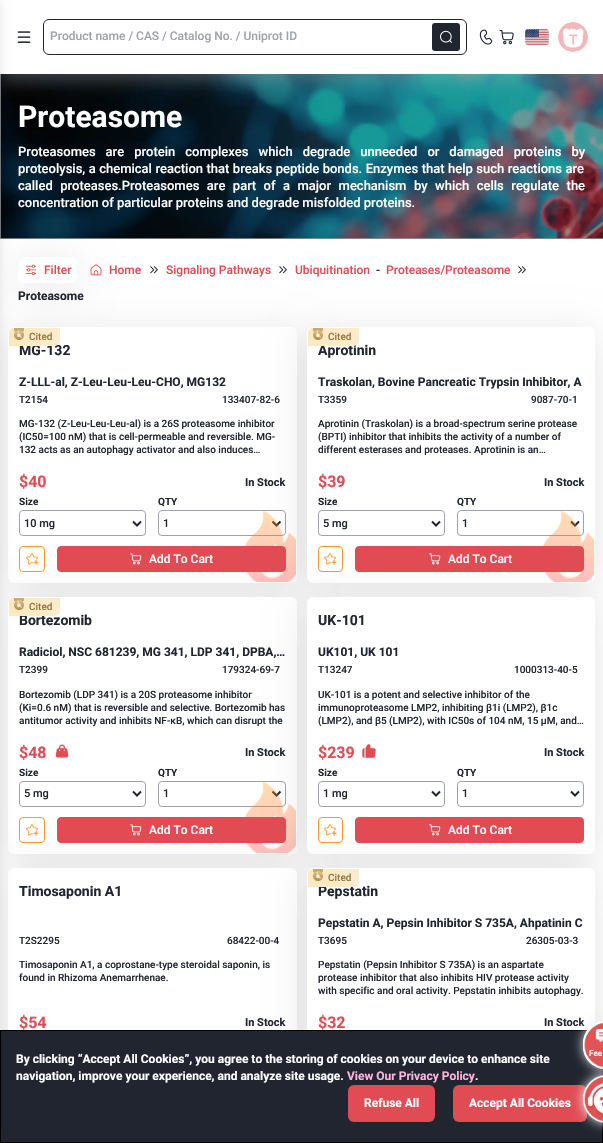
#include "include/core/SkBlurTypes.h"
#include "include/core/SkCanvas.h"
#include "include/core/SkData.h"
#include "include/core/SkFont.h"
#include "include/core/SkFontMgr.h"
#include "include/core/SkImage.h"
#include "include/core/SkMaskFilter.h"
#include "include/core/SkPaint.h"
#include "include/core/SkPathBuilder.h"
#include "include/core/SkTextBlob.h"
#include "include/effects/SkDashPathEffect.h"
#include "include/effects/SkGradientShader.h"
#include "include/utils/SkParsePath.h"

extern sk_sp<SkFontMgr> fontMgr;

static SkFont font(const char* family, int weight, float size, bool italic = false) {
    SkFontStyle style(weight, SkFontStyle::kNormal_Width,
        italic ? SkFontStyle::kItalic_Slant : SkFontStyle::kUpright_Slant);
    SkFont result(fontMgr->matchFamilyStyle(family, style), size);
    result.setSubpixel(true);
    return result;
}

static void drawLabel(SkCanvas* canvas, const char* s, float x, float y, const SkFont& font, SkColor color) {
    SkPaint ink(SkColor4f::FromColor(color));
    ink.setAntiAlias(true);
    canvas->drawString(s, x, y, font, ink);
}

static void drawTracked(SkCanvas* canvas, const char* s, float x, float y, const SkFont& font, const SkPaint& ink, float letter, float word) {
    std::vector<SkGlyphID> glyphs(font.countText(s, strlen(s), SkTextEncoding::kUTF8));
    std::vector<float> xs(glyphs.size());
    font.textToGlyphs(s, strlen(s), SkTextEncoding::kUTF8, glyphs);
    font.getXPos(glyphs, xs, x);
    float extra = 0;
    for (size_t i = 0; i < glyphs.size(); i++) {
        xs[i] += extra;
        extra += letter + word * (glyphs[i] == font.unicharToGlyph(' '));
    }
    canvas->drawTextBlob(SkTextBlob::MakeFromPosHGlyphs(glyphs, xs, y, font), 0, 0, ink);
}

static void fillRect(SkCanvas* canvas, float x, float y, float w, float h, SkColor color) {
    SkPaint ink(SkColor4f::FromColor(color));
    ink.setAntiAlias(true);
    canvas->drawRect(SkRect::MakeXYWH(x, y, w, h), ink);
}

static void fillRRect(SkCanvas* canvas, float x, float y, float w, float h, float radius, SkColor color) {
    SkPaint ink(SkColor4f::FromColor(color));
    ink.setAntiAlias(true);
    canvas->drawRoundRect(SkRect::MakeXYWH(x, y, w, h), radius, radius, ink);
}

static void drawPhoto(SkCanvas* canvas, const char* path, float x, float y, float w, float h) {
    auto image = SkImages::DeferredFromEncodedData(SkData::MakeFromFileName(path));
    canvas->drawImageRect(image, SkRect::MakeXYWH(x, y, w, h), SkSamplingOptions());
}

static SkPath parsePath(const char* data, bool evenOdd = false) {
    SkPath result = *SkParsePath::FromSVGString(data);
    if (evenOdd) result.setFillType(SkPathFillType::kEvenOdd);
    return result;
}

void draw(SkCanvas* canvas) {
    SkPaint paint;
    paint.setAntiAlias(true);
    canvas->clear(0xFFFFFFFF);
    drawPhoto(canvas, "assets/img7.png", 0, 74, 603, 165);
    paint.setColor(0x59BBBFC3);
    paint.setMaskFilter(SkMaskFilter::MakeBlur(kNormal_SkBlurStyle, 8.5f));
    canvas->drawRect(SkRect::MakeXYWH(0, 6, 603, 74), paint);
    paint.setMaskFilter(nullptr);
    fillRect(canvas, 0, 0, 603, 74, 0xFFFFFFFF);
    drawPhoto(canvas, "assets/img1.png", 17, 31, 14, 12);
    paint.setStroke(true);
    paint.setStrokeWidth(1);
    paint.setColor(0xFF202530);
    canvas->drawRoundRect(SkRect::MakeXYWH(43.5f, 19.5f, 423, 35), 5.5f, 5.5f, paint);
    SkFont font1 = font("Roboto", 500, 12);
    drawLabel(canvas, "Product name / CAS / Catalog No. / Uniprot ID", 50, 40, font1, 0xFF9FA3AD);
    fillRRect(canvas, 432, 23, 28, 28, 3, 0xFF202530);
    drawPhoto(canvas, "assets/img2.png", 440, 30, 12, 13);
    drawPhoto(canvas, "assets/img3.png", 479, 29, 14, 16);
    drawPhoto(canvas, "assets/img4.png", 499, 30, 15, 15);
    drawPhoto(canvas, "assets/img5.png", 525, 29, 24, 16);
    drawPhoto(canvas, "assets/img6.png", 558, 22, 30, 30);
    paint.setStroke(false);
    paint.setColor(0x1A000000);
    paint.setMaskFilter(SkMaskFilter::MakeBlur(kNormal_SkBlurStyle, 19));
    canvas->drawRoundRect(SkRect::MakeXYWH(18, 262, 59, 26), 6, 6, paint);
    paint.setMaskFilter(nullptr);
    fillRRect(canvas, 18, 257, 59, 26, 6, 0xFFFFFFFF);
    drawPhoto(canvas, "assets/img8.png", 25, 264, 12, 12);
    drawPhoto(canvas, "assets/img9.png", 90, 264, 12, 12);
    paint.setMaskFilter(SkMaskFilter::MakeBlur(kNormal_SkBlurStyle, 19));
    canvas->drawRoundRect(SkRect::MakeXYWH(8, 332, 289, 256), 6, 6, paint);
    paint.setMaskFilter(nullptr);
    fillRRect(canvas, 8, 327, 289, 256, 6, 0xFFFFFFFF);
    SkFont font2 = font("Roboto", 700, 14);
    drawLabel(canvas, "MG-132", 19, 355, font2, 0xFF202530);
    {
        const SkColor colors[] = {0xFFF8ECD2, 0xFFFFE9BC};
        const float stops[] = {0, 1};
        const SkPoint ends[] = {{52, 354}, {17, 320}};
        paint.setShader(SkGradientShader::MakeLinear(ends, colors, stops, 2, SkTileMode::kClamp));
        paint.setAlpha(255);
    }
    canvas->drawPath(parsePath("M14 328H60V340C60 343.5 57.5 346 54 346H9V333C9 330 11 328 14 328Z"), paint);
    drawPhoto(canvas, "assets/img11.png", 14, 328, 10, 12);
    paint.setStroke(true);
    paint.setShader(nullptr);
    paint.setColor(0xFF9FA3AD);
    canvas->drawRoundRect(SkRect::MakeXYWH(158.5f, 510.5f, 127, 25), 3.5f, 3.5f, paint);
    paint.setStrokeWidth(2);
    paint.setColor(0xFF202530);
    canvas->drawPath(parsePath("M272.5 521.5L276.5 525.5L280.5 521.5"), paint);
    drawPhoto(canvas, "assets/img14.png", 245, 511, 51, 71);
    paint.setStroke(false);
    paint.setColor(0x1A000000);
    paint.setMaskFilter(SkMaskFilter::MakeBlur(kNormal_SkBlurStyle, 19));
    canvas->drawRoundRect(SkRect::MakeXYWH(307, 332, 288, 256), 6, 6, paint);
    paint.setMaskFilter(nullptr);
    paint.setColor(0xFFFFFFFF);
    canvas->drawRoundRect(SkRect::MakeXYWH(307.5f, 327.5f, 287, 255), 5.5f, 5.5f, paint);
    paint.setStroke(true);
    paint.setStrokeWidth(1);
    canvas->drawRoundRect(SkRect::MakeXYWH(307.5f, 327.5f, 287, 255), 5.5f, 5.5f, paint);
    paint.setStroke(false);
    paint.setColor(0x1A000000);
    paint.setMaskFilter(SkMaskFilter::MakeBlur(kNormal_SkBlurStyle, 19));
    canvas->drawRoundRect(SkRect::MakeXYWH(8, 602, 289, 257), 6, 6, paint);
    paint.setMaskFilter(nullptr);
    paint.setColor(0xFFFFFFFF);
    canvas->drawRoundRect(SkRect::MakeXYWH(8.5f, 597.5f, 288, 256), 5.5f, 5.5f, paint);
    paint.setStroke(true);
    canvas->drawRoundRect(SkRect::MakeXYWH(8.5f, 597.5f, 288, 256), 5.5f, 5.5f, paint);
    drawLabel(canvas, "Bortezomib", 19, 625, font2, 0xFF202530);
    paint.setStroke(false);
    {
        const SkColor colors[] = {0xFFF8ECD2, 0xFFFFE9BC};
        const float stops[] = {0, 1};
        const SkPoint ends[] = {{52, 624}, {17, 590}};
        paint.setShader(SkGradientShader::MakeLinear(ends, colors, stops, 2, SkTileMode::kClamp));
        paint.setAlpha(255);
    }
    canvas->drawPath(parsePath("M14 598H60V610C60 613.5 57.5 616 54 616H9V603C9 600 11 598 14 598Z"), paint);
    drawPhoto(canvas, "assets/img11.png", 14, 598, 10, 12);
    paint.setStroke(true);
    paint.setShader(nullptr);
    paint.setColor(0xFF9FA3AD);
    canvas->drawRoundRect(SkRect::MakeXYWH(457.5f, 510.5f, 126, 25), 3.5f, 3.5f, paint);
    paint.setStrokeWidth(2);
    paint.setColor(0xFF202530);
    canvas->drawPath(parsePath("M571 521.5L575 525.5L579 521.5"), paint);
    drawPhoto(canvas, "assets/img16.png", 543, 511, 51, 71);
    paint.setStrokeWidth(1);
    paint.setColor(0xFF9FA3AD);
    canvas->drawRoundRect(SkRect::MakeXYWH(158.5f, 781.5f, 127, 25), 3.5f, 3.5f, paint);
    paint.setStrokeWidth(2);
    paint.setColor(0xFF202530);
    canvas->drawPath(parsePath("M272.5 791.5L276.5 795.5L280.5 791.5"), paint);
    drawPhoto(canvas, "assets/img18.png", 245, 782, 51, 71);
    paint.setStroke(false);
    paint.setColor(0x1A000000);
    paint.setMaskFilter(SkMaskFilter::MakeBlur(kNormal_SkBlurStyle, 19));
    canvas->drawRoundRect(SkRect::MakeXYWH(307, 602, 288, 257), 6, 6, paint);
    paint.setMaskFilter(nullptr);
    paint.setColor(0xFFFFFFFF);
    canvas->drawRoundRect(SkRect::MakeXYWH(307.5f, 597.5f, 287, 256), 5.5f, 5.5f, paint);
    paint.setStroke(true);
    paint.setStrokeWidth(1);
    canvas->drawRoundRect(SkRect::MakeXYWH(307.5f, 597.5f, 287, 256), 5.5f, 5.5f, paint);
    paint.setStroke(false);
    paint.setColor(0x1A000000);
    paint.setMaskFilter(SkMaskFilter::MakeBlur(kNormal_SkBlurStyle, 19));
    canvas->drawRoundRect(SkRect::MakeXYWH(8, 873, 289, 256), 6, 6, paint);
    paint.setMaskFilter(nullptr);
    paint.setColor(0xFFFFFFFF);
    canvas->drawRoundRect(SkRect::MakeXYWH(8.5f, 868.5f, 288, 255), 5.5f, 5.5f, paint);
    paint.setStroke(true);
    canvas->drawRoundRect(SkRect::MakeXYWH(8.5f, 868.5f, 288, 255), 5.5f, 5.5f, paint);
    paint.setStroke(false);
    paint.setColor(0x1A000000);
    paint.setMaskFilter(SkMaskFilter::MakeBlur(kNormal_SkBlurStyle, 19));
    canvas->drawRoundRect(SkRect::MakeXYWH(307, 873, 288, 256), 6, 6, paint);
    paint.setMaskFilter(nullptr);
    paint.setColor(0xFFFFFFFF);
    canvas->drawRoundRect(SkRect::MakeXYWH(307.5f, 868.5f, 287, 255), 5.5f, 5.5f, paint);
    paint.setStroke(true);
    canvas->drawRoundRect(SkRect::MakeXYWH(307.5f, 868.5f, 287, 255), 5.5f, 5.5f, paint);
    paint.setStroke(false);
    paint.setColor(0xFF202530);
    canvas->drawRect(SkRect::MakeXYWH(0.5f, 1030.5f, 602, 112), paint);
    paint.setStroke(true);
    paint.setColor(0xFF000000);
    canvas->drawRect(SkRect::MakeXYWH(0.5f, 1030.5f, 602, 112), paint);
    paint.setStroke(false);
    paint.setColor(0x1A000000);
    paint.setMaskFilter(SkMaskFilter::MakeBlur(kNormal_SkBlurStyle, 6));
    canvas->drawRoundRect(SkRect::MakeXYWH(-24, -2, 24, 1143), 6, 6, paint);
    paint.setMaskFilter(nullptr);
    SkFont font3 = font("Roboto", 700, 30);
    drawLabel(canvas, "Proteasome", 18, 127, font3, 0xFFFFFFFF);
    SkFont font4 = font("Roboto", 500, 13);
    paint.setColor(0xFFFFFFFF);
    drawTracked(canvas, "Proteasomes are protein complexes which degrade unneeded or damaged proteins by", 18, 156, font4, paint, 0, 6.75f);
    drawTracked(canvas, "proteolysis, a chemical reaction that breaks peptide bonds. Enzymes that help such reactions are", 18, 173, font4, paint, 0, 0.25f);
    drawTracked(canvas, "called proteases.Proteasomes are part of a major mechanism by which cells regulate the", 18, 190, font4, paint, 0, 4.25f);
    drawLabel(canvas, "concentration of particular proteins and degrade misfolded proteins.", 18, 207, font4, 0xFFFFFFFF);
    drawLabel(canvas, "Filter", 44, 274, font1, 0xFFE14C54);
    drawLabel(canvas, "Home", 109, 274, font1, 0xFFE14C54);
    drawPhoto(canvas, "assets/img10.png", 150, 266, 8, 8);
    drawLabel(canvas, "Signaling Pathways", 166, 274, font1, 0xFFE14C54);
    drawPhoto(canvas, "assets/img10.png", 279, 266, 8, 8);
    drawLabel(canvas, "Ubiquitination", 295, 274, font1, 0xFFE14C54);
    drawLabel(canvas, "-", 376, 274, font1, 0xFF202530);
    drawLabel(canvas, "Proteases/Proteasome", 386, 274, font1, 0xFFE14C54);
    drawPhoto(canvas, "assets/img10.png", 518, 266, 8, 8);
    SkFont font5 = font("Roboto", 700, 12);
    drawLabel(canvas, "Proteasome", 18, 300, font5, 0xFF202530);
    SkFont font6 = font("Roboto", 500, 10);
    drawLabel(canvas, "Cited", 29, 340, font6, 0xFF93763D);
    drawLabel(canvas, "Z-LLL-al, Z-Leu-Leu-Leu-CHO, MG132", 19, 386, font5, 0xFF202530);
    drawLabel(canvas, "T2154", 19, 403, font6, 0xFF202530);
    drawLabel(canvas, "133407-82-6", 222, 403, font6, 0xFF202530);
    drawLabel(canvas, "MG-132 (Z-Leu-Leu-Leu-al) is a 26S proteasome inhibitor", 19, 427, font6, 0xFF202530);
    drawLabel(canvas, "(IC50=100 nM) that is cell-permeable and reversible. MG-", 19, 440, font6, 0xFF202530);
    drawLabel(canvas, "132 acts as an autophagy activator and also induces…", 19, 453, font6, 0xFF202530);
    SkFont font7 = font("Roboto", 700, 16);
    drawLabel(canvas, "$40", 19, 487, font7, 0xFFE14C54);
    SkFont font8 = font("Roboto", 700, 11);
    drawLabel(canvas, "In Stock", 245, 486, font8, 0xFF202530);
    SkFont font9 = font("Roboto", 700, 10);
    drawLabel(canvas, "Size", 19, 505, font9, 0xFF202530);
    paint.setStroke(true);
    paint.setColor(0xFF9FA3AD);
    canvas->drawRoundRect(SkRect::MakeXYWH(19.5f, 510.5f, 126, 25), 3.5f, 3.5f, paint);
    paint.setStrokeWidth(2);
    paint.setColor(0xFF202530);
    canvas->drawPath(parsePath("M133 521.5L137 525.5L141 521.5"), paint);
    SkFont font10 = font("Roboto", 500, 11);
    drawLabel(canvas, "10 mg", 24, 527, font10, 0xFF202530);
    drawLabel(canvas, "QTY", 158, 505, font9, 0xFF202530);
    drawLabel(canvas, "1", 163, 527, font10, 0xFF202530);
    paint.setStrokeWidth(1);
    paint.setColor(0xFFFF9627);
    canvas->drawRoundRect(SkRect::MakeXYWH(19.5f, 546.5f, 25, 25), 3.5f, 3.5f, paint);
    drawPhoto(canvas, "assets/img12.png", 26, 553, 13, 12);
    paint.setStroke(false);
    paint.setColor(0xFFE14C54);
    canvas->drawRoundRect(SkRect::MakeXYWH(57.5f, 546.5f, 228, 25), 3.5f, 3.5f, paint);
    paint.setStroke(true);
    canvas->drawRoundRect(SkRect::MakeXYWH(57.5f, 546.5f, 228, 25), 3.5f, 3.5f, paint);
    drawPhoto(canvas, "assets/img13.png", 130, 553, 12, 12);
    drawLabel(canvas, "Add To Cart", 149, 563, font1, 0xFFFFFFFF);
    drawLabel(canvas, "Aprotinin", 318, 355, font2, 0xFF202530);
    paint.setStroke(false);
    {
        const SkColor colors[] = {0xFFF8ECD2, 0xFFFFE9BC};
        const float stops[] = {0, 1};
        const SkPoint ends[] = {{351, 354}, {316, 320}};
        paint.setShader(SkGradientShader::MakeLinear(ends, colors, stops, 2, SkTileMode::kClamp));
        paint.setAlpha(255);
    }
    canvas->drawPath(parsePath("M313 328H359V340C359 343.5 356.5 346 353 346H308V333C308 330 310 328 313 328Z"), paint);
    drawPhoto(canvas, "assets/img11.png", 313, 328, 10, 12);
    drawLabel(canvas, "Cited", 328, 340, font6, 0xFF93763D);
    drawLabel(canvas, "Traskolan, Bovine Pancreatic Trypsin Inhibitor, A", 318, 386, font5, 0xFF202530);
    drawLabel(canvas, "T3359", 318, 403, font6, 0xFF202530);
    drawLabel(canvas, "9087-70-1", 531, 403, font6, 0xFF202530);
    drawLabel(canvas, "Aprotinin (Traskolan) is a broad-spectrum serine protease", 318, 427, font6, 0xFF202530);
    drawLabel(canvas, "(BPTI) inhibitor that inhibits the activity of a number of", 318, 440, font6, 0xFF202530);
    drawLabel(canvas, "different esterases and proteases. Aprotinin is an…", 318, 453, font6, 0xFF202530);
    drawLabel(canvas, "$39", 318, 487, font7, 0xFFE14C54);
    drawLabel(canvas, "In Stock", 544, 486, font8, 0xFF202530);
    drawLabel(canvas, "Size", 318, 505, font9, 0xFF202530);
    paint.setStroke(true);
    paint.setShader(nullptr);
    paint.setColor(0xFF9FA3AD);
    canvas->drawRoundRect(SkRect::MakeXYWH(318.5f, 510.5f, 126, 25), 3.5f, 3.5f, paint);
    paint.setStrokeWidth(2);
    paint.setColor(0xFF202530);
    canvas->drawPath(parsePath("M432 521.5L436 525.5L440 521.5"), paint);
    drawLabel(canvas, "5 mg", 323, 527, font10, 0xFF202530);
    drawLabel(canvas, "QTY", 457, 505, font9, 0xFF202530);
    drawLabel(canvas, "1", 462, 527, font10, 0xFF202530);
    paint.setStrokeWidth(1);
    paint.setColor(0xFFFF9627);
    canvas->drawRoundRect(SkRect::MakeXYWH(318.5f, 546.5f, 24, 25), 3.5f, 3.5f, paint);
    drawPhoto(canvas, "assets/img15.png", 324, 553, 13, 12);
    paint.setStroke(false);
    paint.setColor(0xFFE14C54);
    canvas->drawRoundRect(SkRect::MakeXYWH(355.5f, 546.5f, 228, 25), 3.5f, 3.5f, paint);
    paint.setStroke(true);
    canvas->drawRoundRect(SkRect::MakeXYWH(355.5f, 546.5f, 228, 25), 3.5f, 3.5f, paint);
    drawPhoto(canvas, "assets/img13.png", 429, 553, 12, 12);
    drawLabel(canvas, "Add To Cart", 448, 563, font1, 0xFFFFFFFF);
    drawLabel(canvas, "Cited", 29, 610, font6, 0xFF93763D);
    drawLabel(canvas, "Radiciol, NSC 681239, MG 341, LDP 341, DPBA,…", 19, 656, font5, 0xFF202530);
    drawLabel(canvas, "T2399", 19, 673, font6, 0xFF202530);
    drawLabel(canvas, "179324-69-7", 222, 673, font6, 0xFF202530);
    drawLabel(canvas, "Bortezomib (LDP 341) is a 20S proteasome inhibitor", 19, 698, font6, 0xFF202530);
    drawLabel(canvas, "(Ki=0.6 nM) that is reversible and selective. Bortezomib has", 19, 711, font6, 0xFF202530);
    drawLabel(canvas, "antitumor activity and inhibits NF-κB, which can disrupt the", 19, 724, font6, 0xFF202530);
    drawLabel(canvas, "$48", 19, 758, font7, 0xFFE14C54);
    drawPhoto(canvas, "assets/img17.png", 55, 744, 14, 14);
    drawLabel(canvas, "In Stock", 245, 756, font8, 0xFF202530);
    drawLabel(canvas, "Size", 19, 776, font9, 0xFF202530);
    paint.setColor(0xFF9FA3AD);
    canvas->drawRoundRect(SkRect::MakeXYWH(19.5f, 781.5f, 126, 25), 3.5f, 3.5f, paint);
    paint.setStrokeWidth(2);
    paint.setColor(0xFF202530);
    canvas->drawPath(parsePath("M133 791.5L137 795.5L141 791.5"), paint);
    drawLabel(canvas, "5 mg", 24, 797, font10, 0xFF202530);
    drawLabel(canvas, "QTY", 158, 776, font9, 0xFF202530);
    drawLabel(canvas, "1", 163, 797, font10, 0xFF202530);
    paint.setStrokeWidth(1);
    paint.setColor(0xFFFF9627);
    canvas->drawRoundRect(SkRect::MakeXYWH(19.5f, 817.5f, 25, 25), 3.5f, 3.5f, paint);
    drawPhoto(canvas, "assets/img12.png", 26, 824, 13, 12);
    paint.setStroke(false);
    paint.setColor(0xFFE14C54);
    canvas->drawRoundRect(SkRect::MakeXYWH(57.5f, 817.5f, 228, 25), 3.5f, 3.5f, paint);
    paint.setStroke(true);
    canvas->drawRoundRect(SkRect::MakeXYWH(57.5f, 817.5f, 228, 25), 3.5f, 3.5f, paint);
    drawPhoto(canvas, "assets/img13.png", 130, 824, 12, 12);
    drawLabel(canvas, "Add To Cart", 149, 834, font1, 0xFFFFFFFF);
    drawLabel(canvas, "UK-101", 318, 625, font2, 0xFF202530);
    drawLabel(canvas, "UK101, UK 101", 318, 656, font5, 0xFF202530);
    drawLabel(canvas, "T13247", 318, 673, font6, 0xFF202530);
    drawLabel(canvas, "1000313-40-5", 514, 673, font6, 0xFF202530);
    drawLabel(canvas, "UK-101 is a potent and selective inhibitor of the", 318, 698, font6, 0xFF202530);
    drawLabel(canvas, "immunoproteasome LMP2, inhibiting β1i (LMP2), β1c", 318, 711, font6, 0xFF202530);
    drawLabel(canvas, "(LMP2), and β5 (LMP2), with IC50s of 104 nM, 15 μM, and…", 318, 724, font6, 0xFF202530);
    drawLabel(canvas, "$239", 318, 758, font7, 0xFFE14C54);
    drawPhoto(canvas, "assets/img19.png", 362, 744, 14, 14);
    drawLabel(canvas, "In Stock", 544, 756, font8, 0xFF202530);
    drawLabel(canvas, "Size", 318, 776, font9, 0xFF202530);
    paint.setColor(0xFF9FA3AD);
    canvas->drawRoundRect(SkRect::MakeXYWH(318.5f, 781.5f, 126, 25), 3.5f, 3.5f, paint);
    paint.setStrokeWidth(2);
    paint.setColor(0xFF202530);
    canvas->drawPath(parsePath("M432 791.5L436 795.5L440 791.5"), paint);
    drawLabel(canvas, "1 mg", 323, 797, font10, 0xFF202530);
    drawLabel(canvas, "QTY", 457, 776, font9, 0xFF202530);
    paint.setStrokeWidth(1);
    paint.setColor(0xFF9FA3AD);
    canvas->drawRoundRect(SkRect::MakeXYWH(457.5f, 781.5f, 126, 25), 3.5f, 3.5f, paint);
    paint.setStrokeWidth(2);
    paint.setColor(0xFF202530);
    canvas->drawPath(parsePath("M571 791.5L575 795.5L579 791.5"), paint);
    drawLabel(canvas, "1", 462, 797, font10, 0xFF202530);
    paint.setStrokeWidth(1);
    paint.setColor(0xFFFF9627);
    canvas->drawRoundRect(SkRect::MakeXYWH(318.5f, 817.5f, 24, 25), 3.5f, 3.5f, paint);
    drawPhoto(canvas, "assets/img15.png", 324, 824, 13, 12);
    paint.setStroke(false);
    paint.setColor(0xFFE14C54);
    canvas->drawRoundRect(SkRect::MakeXYWH(355.5f, 817.5f, 228, 25), 3.5f, 3.5f, paint);
    paint.setStroke(true);
    canvas->drawRoundRect(SkRect::MakeXYWH(355.5f, 817.5f, 228, 25), 3.5f, 3.5f, paint);
    drawPhoto(canvas, "assets/img13.png", 429, 824, 12, 12);
    drawLabel(canvas, "Add To Cart", 448, 834, font1, 0xFFFFFFFF);
    drawLabel(canvas, "Timosaponin A1", 19, 896, font2, 0xFF202530);
    drawLabel(canvas, "T2S2295", 19, 944, font6, 0xFF202530);
    drawLabel(canvas, "68422-00-4", 227, 944, font6, 0xFF202530);
    drawLabel(canvas, "Timosaponin A1, a coprostane-type steroidal saponin, is", 19, 968, font6, 0xFF202530);
    drawLabel(canvas, "found in Rhizoma Anemarrhenae.", 19, 981, font6, 0xFF202530);
    drawLabel(canvas, "$54", 19, 1028, font7, 0xFFE14C54);
    drawLabel(canvas, "In Stock", 245, 1026, font8, 0xFF202530);
    drawLabel(canvas, "Pepstatin", 318, 896, font2, 0xFF202530);
    paint.setStroke(false);
    {
        const SkColor colors[] = {0xFFF8ECD2, 0xFFFFE9BC};
        const float stops[] = {0, 1};
        const SkPoint ends[] = {{351, 895}, {316, 861}};
        paint.setShader(SkGradientShader::MakeLinear(ends, colors, stops, 2, SkTileMode::kClamp));
        paint.setAlpha(255);
    }
    canvas->drawPath(parsePath("M313 869H359V881C359 884.5 356.5 887 353 887H308V874C308 871 310 869 313 869Z"), paint);
    drawPhoto(canvas, "assets/img11.png", 313, 869, 10, 12);
    drawLabel(canvas, "Cited", 328, 881, font6, 0xFF93763D);
    drawLabel(canvas, "Pepstatin A, Pepsin Inhibitor S 735A, Ahpatinin C", 318, 927, font5, 0xFF202530);
    drawLabel(canvas, "T3695", 318, 944, font6, 0xFF202530);
    drawLabel(canvas, "26305-03-3", 526, 944, font6, 0xFF202530);
    drawLabel(canvas, "Pepstatin (Pepsin Inhibitor S 735A) is an aspartate", 318, 968, font6, 0xFF202530);
    drawLabel(canvas, "protease inhibitor that also inhibits HIV protease activity", 318, 981, font6, 0xFF202530);
    drawLabel(canvas, "with specific and oral activity. Pepstatin inhibits autophagy.", 318, 994, font6, 0xFF202530);
    drawLabel(canvas, "$32", 318, 1028, font7, 0xFFE14C54);
    drawLabel(canvas, "In Stock", 544, 1026, font8, 0xFF202530);
    drawLabel(canvas, "By clicking “Accept All Cookies”, you agree to the storing of cookies on your device to enhance site", 16, 1063, font5, 0xFFFFFFFF);
    drawLabel(canvas, "navigation, improve your experience, and analyze site usage.", 16, 1080, font5, 0xFFFFFFFF);
    drawLabel(canvas, "View Our Privacy Policy", 347, 1080, font5, 0xFFFFB3DD);
    drawLabel(canvas, ".", 475, 1080, font5, 0xFFFFFFFF);
    fillRRect(canvas, 348, 1085, 87, 37, 6, 0xFFE14C54);
    drawLabel(canvas, "Refuse All", 364, 1107, font5, 0xFFFFFFFF);
    fillRRect(canvas, 453, 1085, 134, 37, 6, 0xFFE14C54);
    drawLabel(canvas, "Accept All Cookies", 469, 1107, font5, 0xFFFFFFFF);
    paint.setShader(nullptr);
    paint.setColor(0xFFEBEBEB);
    paint.setMaskFilter(SkMaskFilter::MakeBlur(kNormal_SkBlurStyle, 6));
    canvas->drawRoundRect(SkRect::MakeXYWH(583, 1021, 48, 48), 24, 24, paint);
    paint.setMaskFilter(nullptr);
    fillRRect(canvas, 583, 1021, 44, 48, 24, 0xFFFFFFFF);
    drawPhoto(canvas, "assets/img20.png", 583, 1022, 20, 47);
    SkFont font11 = font("Roboto", 500, 8);
    drawLabel(canvas, "Fee", 589, 1056, font11, 0xFFFFFFFF);
    paint.setMaskFilter(SkMaskFilter::MakeBlur(kNormal_SkBlurStyle, 6));
    canvas->drawRoundRect(SkRect::MakeXYWH(583, 1075, 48, 48), 24, 24, paint);
    paint.setMaskFilter(nullptr);
    drawPhoto(canvas, "assets/img21.png", 583, 1075, 20, 48);
}
